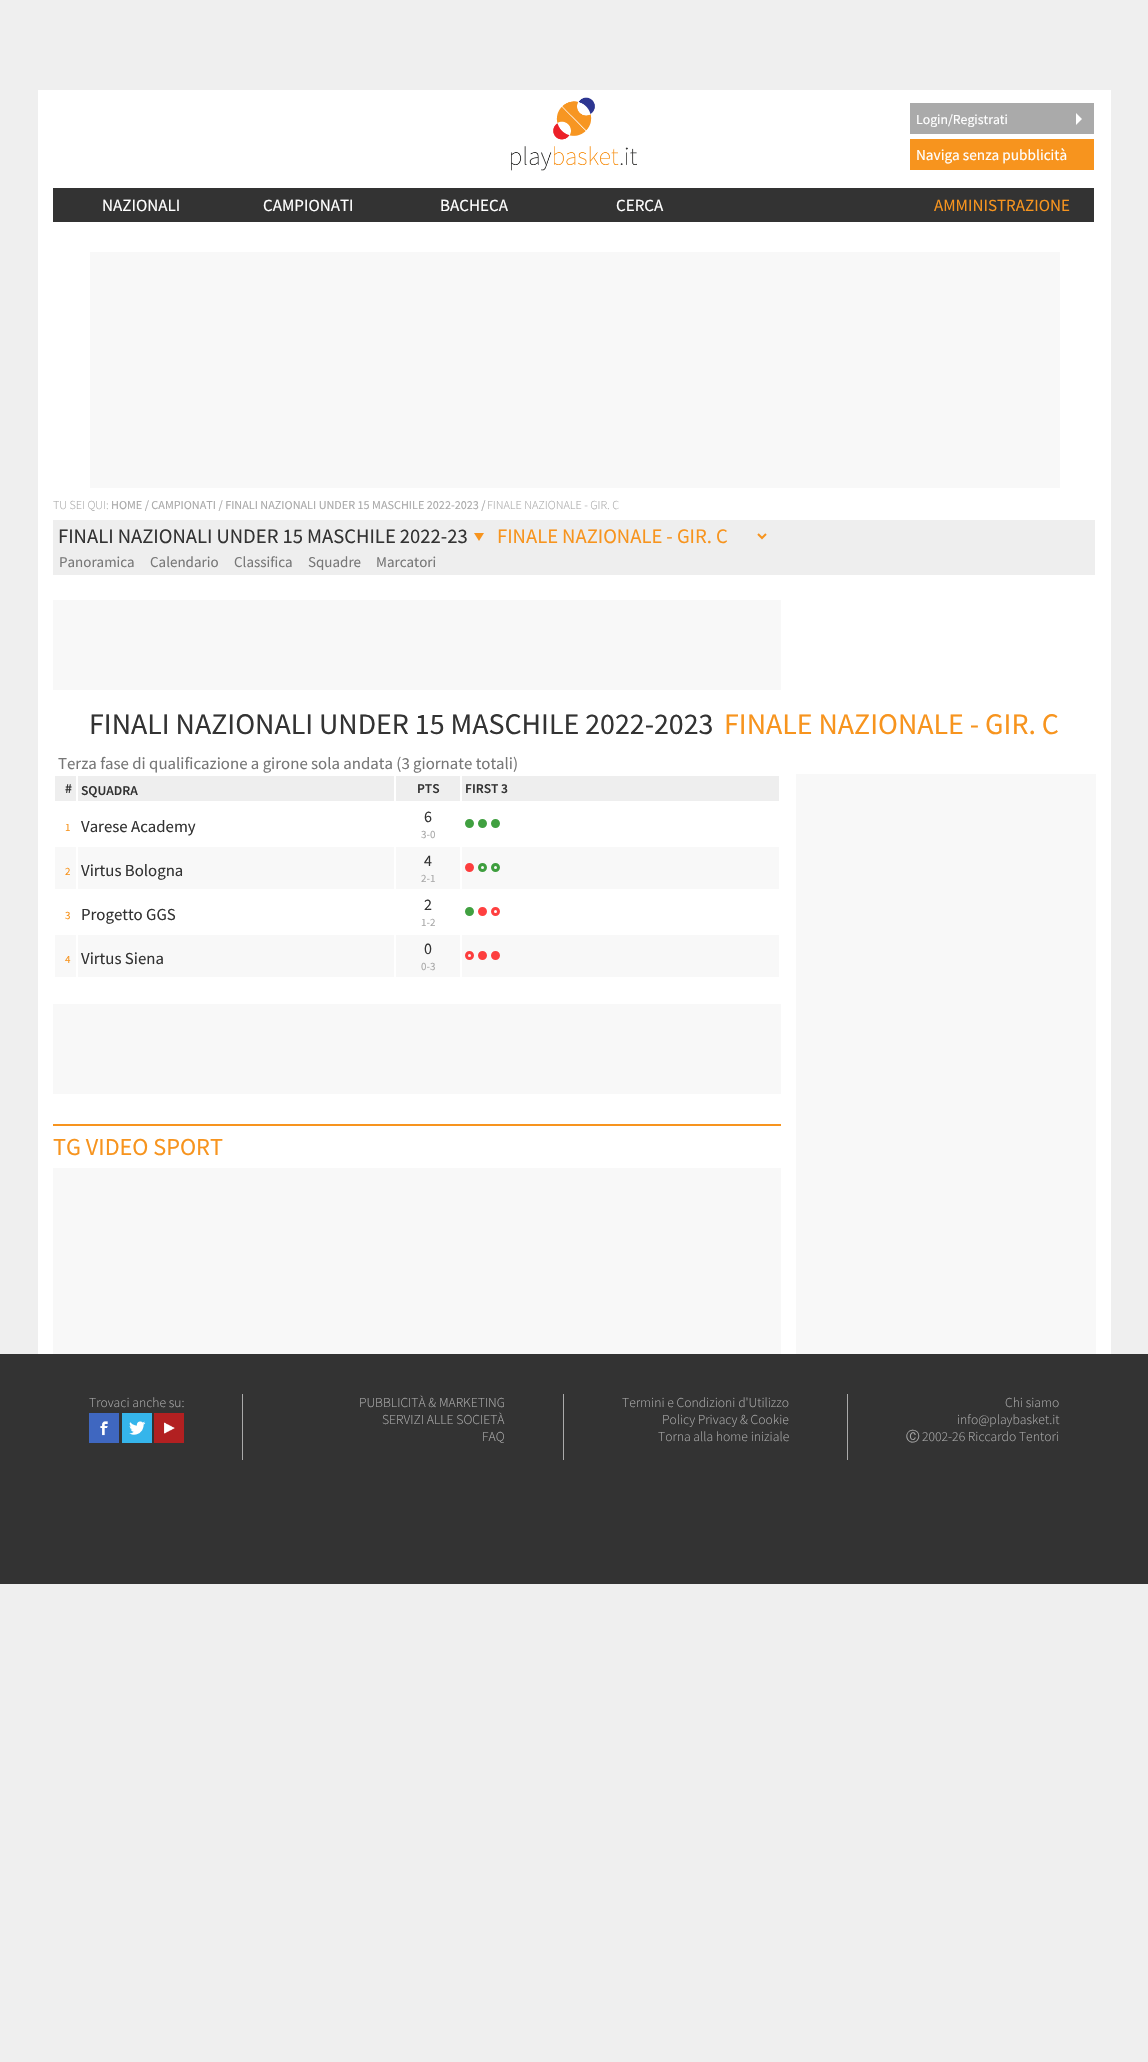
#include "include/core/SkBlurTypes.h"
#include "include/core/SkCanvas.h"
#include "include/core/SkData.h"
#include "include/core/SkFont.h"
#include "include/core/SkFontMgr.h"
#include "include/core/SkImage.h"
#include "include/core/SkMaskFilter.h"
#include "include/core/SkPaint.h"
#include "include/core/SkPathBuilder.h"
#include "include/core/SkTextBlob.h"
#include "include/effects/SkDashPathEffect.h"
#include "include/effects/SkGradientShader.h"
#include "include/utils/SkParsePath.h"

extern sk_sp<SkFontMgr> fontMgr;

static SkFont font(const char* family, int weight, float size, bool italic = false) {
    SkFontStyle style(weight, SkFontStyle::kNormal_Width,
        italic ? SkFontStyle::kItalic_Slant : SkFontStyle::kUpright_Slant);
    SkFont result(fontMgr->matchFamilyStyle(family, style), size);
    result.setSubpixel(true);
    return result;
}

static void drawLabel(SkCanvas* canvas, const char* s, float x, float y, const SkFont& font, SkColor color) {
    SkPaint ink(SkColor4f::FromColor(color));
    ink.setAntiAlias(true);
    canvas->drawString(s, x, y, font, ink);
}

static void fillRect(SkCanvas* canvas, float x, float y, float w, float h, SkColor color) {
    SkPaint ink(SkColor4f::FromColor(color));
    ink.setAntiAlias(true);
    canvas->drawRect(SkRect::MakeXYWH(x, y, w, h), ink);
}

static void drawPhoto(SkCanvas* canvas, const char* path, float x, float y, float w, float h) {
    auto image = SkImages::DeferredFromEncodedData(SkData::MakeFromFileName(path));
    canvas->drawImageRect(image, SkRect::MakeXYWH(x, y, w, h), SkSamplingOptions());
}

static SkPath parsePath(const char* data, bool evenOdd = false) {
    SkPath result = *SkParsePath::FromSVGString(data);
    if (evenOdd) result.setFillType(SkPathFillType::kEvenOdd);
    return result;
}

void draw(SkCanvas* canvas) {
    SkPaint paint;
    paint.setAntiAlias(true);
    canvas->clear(0xFFEFEFEF);
    fillRect(canvas, 38, 90, 1073, 1264, 0xFFFFFFFF);
    drawPhoto(canvas, "assets/img1.png", 511, 97, 126, 74);
    fillRect(canvas, 910, 103, 184, 31, 0xFFAAAAAA);
    SkFont font1 = font("Source Sans Pro", 400, 13.75f);
    drawLabel(canvas, "Login/Registrati", 916, 124, font1, 0xFFFFFFFF);
    paint.setColor(0xFFFFFFFF);
    canvas->drawPath(parsePath("M1076 125V113L1082 119Z"), paint);
    fillRect(canvas, 910, 139, 184, 31, 0xFFF7941E);
    SkFont font2 = font("Source Sans Pro", 400, 15.25f);
    drawLabel(canvas, "Naviga senza pubblicità", 916, 160, font2, 0xFFFFFFFF);
    fillRect(canvas, 53, 188, 1041, 34, 0xFF333333);
    SkFont font3 = font("Source Sans Pro", 400, 17);
    drawLabel(canvas, "NAZIONALI", 102, 211, font3, 0xFFFFFFFF);
    drawLabel(canvas, "CAMPIONATI", 263, 211, font3, 0xFFFFFFFF);
    drawLabel(canvas, "BACHECA", 440, 211, font3, 0xFFFFFFFF);
    drawLabel(canvas, "CERCA", 616, 211, font3, 0xFFFFFFFF);
    drawLabel(canvas, "AMMINISTRAZIONE", 934, 211, font3, 0xFFF7941E);
    fillRect(canvas, 90, 252, 970, 236, 0xFFF8F8F8);
    SkFont font4 = font("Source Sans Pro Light", 300, 12.15f);
    drawLabel(canvas, "TU SEI QUI:", 53, 509, font4, 0xFFAAAAAA);
    SkFont font5 = font("Source Sans Pro", 400, 12.15f);
    drawLabel(canvas, "HOME / CAMPIONATI / FINALI NAZIONALI UNDER 15 MASCHILE 2022-2023 /", 111, 509, font5, 0xFFAAAAAA);
    drawLabel(canvas, "FINALE NAZIONALE - GIR. C", 487, 509, font4, 0xFFAAAAAA);
    fillRect(canvas, 53, 520, 1042, 55, 0xFFEEEEEE);
    SkFont font6 = font("Source Sans Pro", 400, 20.6f);
    drawLabel(canvas, "FINALI NAZIONALI UNDER 15 MASCHILE 2022-23", 58, 543, font6, 0xFF333333);
    paint.setColor(0xFFF7941E);
    canvas->drawPath(parsePath("M474 533H484L479 541Z"), paint);
    paint.setStroke(true);
    paint.setStrokeWidth(2);
    canvas->drawPath(parsePath("M758 534L762 538L766 534"), paint);
    drawLabel(canvas, "FINALE NAZIONALE - GIR. C", 497, 543, font6, 0xFFF7941E);
    SkFont font7 = font("Source Sans Pro", 400, 15);
    drawLabel(canvas, "Panoramica", 59, 567, font7, 0xFF777777);
    drawLabel(canvas, "Calendario", 150, 567, font7, 0xFF777777);
    drawLabel(canvas, "Classifica", 234, 567, font7, 0xFF777777);
    drawLabel(canvas, "Squadre", 308, 567, font7, 0xFF777777);
    drawLabel(canvas, "Marcatori", 376, 567, font7, 0xFF777777);
    fillRect(canvas, 53, 600, 728, 90, 0xFFF8F8F8);
    SkFont font8 = font("Source Sans Pro", 400, 29.9f);
    drawLabel(canvas, "FINALI NAZIONALI UNDER 15 MASCHILE 2022-2023", 89, 734, font8, 0xFF333333);
    drawLabel(canvas, "FINALE NAZIONALE - GIR. C", 724, 734, font8, 0xFFF7941E);
    SkFont font9 = font("Source Sans Pro", 400, 16.8f);
    drawLabel(canvas, "Terza fase di qualificazione a girone sola andata (3 giornate totali)", 58, 769, font9, 0xFF777777);
    fillRect(canvas, 55, 776, 21, 25, 0xFFEEEEEE);
    SkFont font10 = font("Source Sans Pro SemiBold", 600, 13.5f);
    drawLabel(canvas, "#", 65, 793, font10, 0xFF333333);
    fillRect(canvas, 78, 776, 316, 25, 0xFFEEEEEE);
    drawLabel(canvas, "SQUADRA", 81, 795, font10, 0xFF333333);
    fillRect(canvas, 396, 776, 64, 25, 0xFFEEEEEE);
    drawLabel(canvas, "PTS", 417, 793, font10, 0xFF333333);
    fillRect(canvas, 462, 776, 317, 25, 0xFFEEEEEE);
    drawLabel(canvas, "FIRST 3", 465, 793, font10, 0xFF333333);
    SkFont font11 = font("Source Sans Pro", 400, 11);
    drawLabel(canvas, "1", 65, 831, font11, 0xFFF7941E);
    drawLabel(canvas, "Varese Academy", 81, 832, font9, 0xFF333333);
    SkFont font12 = font("Source Sans Pro", 400, 16);
    drawLabel(canvas, "6", 424, 822, font12, 0xFF333333);
    drawLabel(canvas, "3-0", 421, 838, font11, 0xFFAAAAAA);
    paint.setStroke(false);
    paint.setColor(0xFF40A040);
    canvas->drawCircle(469.5f, 823.5f, 3, paint);
    paint.setStroke(true);
    paint.setStrokeWidth(3);
    canvas->drawCircle(469.5f, 823.5f, 3, paint);
    paint.setStroke(false);
    canvas->drawCircle(482.5f, 823.5f, 3, paint);
    paint.setStroke(true);
    canvas->drawCircle(482.5f, 823.5f, 3, paint);
    paint.setStroke(false);
    canvas->drawCircle(495.5f, 823.5f, 3, paint);
    paint.setStroke(true);
    canvas->drawCircle(495.5f, 823.5f, 3, paint);
    fillRect(canvas, 55, 847, 21, 42, 0xFFF8F8F8);
    drawLabel(canvas, "2", 65, 875, font11, 0xFFF7941E);
    fillRect(canvas, 78, 847, 316, 42, 0xFFF8F8F8);
    drawLabel(canvas, "Virtus Bologna", 81, 876, font9, 0xFF333333);
    fillRect(canvas, 396, 847, 64, 42, 0xFFF8F8F8);
    drawLabel(canvas, "4", 424, 866, font12, 0xFF333333);
    drawLabel(canvas, "2-1", 421, 882, font11, 0xFFAAAAAA);
    fillRect(canvas, 462, 847, 317, 42, 0xFFF8F8F8);
    paint.setStroke(false);
    paint.setColor(0xFFFD3E3E);
    canvas->drawCircle(469.5f, 867.5f, 3, paint);
    paint.setStroke(true);
    canvas->drawCircle(469.5f, 867.5f, 3, paint);
    paint.setColor(0xFF3E9E3E);
    canvas->drawCircle(482.5f, 867.5f, 3, paint);
    canvas->drawCircle(495.5f, 867.5f, 3, paint);
    drawLabel(canvas, "3", 65, 919, font11, 0xFFF7941E);
    drawLabel(canvas, "Progetto GGS", 81, 920, font9, 0xFF333333);
    drawLabel(canvas, "2", 424, 910, font12, 0xFF333333);
    drawLabel(canvas, "1-2", 421, 926, font11, 0xFFAAAAAA);
    paint.setStroke(false);
    paint.setColor(0xFF40A040);
    canvas->drawCircle(469.5f, 911.5f, 3, paint);
    paint.setStroke(true);
    canvas->drawCircle(469.5f, 911.5f, 3, paint);
    paint.setStroke(false);
    paint.setColor(0xFFFF4040);
    canvas->drawCircle(482.5f, 911.5f, 3, paint);
    paint.setStroke(true);
    canvas->drawCircle(482.5f, 911.5f, 3, paint);
    canvas->drawCircle(495.5f, 911.5f, 3, paint);
    fillRect(canvas, 55, 935, 21, 42, 0xFFF8F8F8);
    drawLabel(canvas, "4", 65, 963, font11, 0xFFF7941E);
    fillRect(canvas, 78, 935, 316, 42, 0xFFF8F8F8);
    drawLabel(canvas, "Virtus Siena", 81, 964, font9, 0xFF333333);
    fillRect(canvas, 396, 935, 64, 42, 0xFFF8F8F8);
    drawLabel(canvas, "0", 424, 954, font12, 0xFF333333);
    drawLabel(canvas, "0-3", 421, 970, font11, 0xFFAAAAAA);
    fillRect(canvas, 462, 935, 317, 42, 0xFFF8F8F8);
    paint.setColor(0xFFFD3E3E);
    canvas->drawCircle(469.5f, 955.5f, 3, paint);
    paint.setStroke(false);
    canvas->drawCircle(482.5f, 955.5f, 3, paint);
    paint.setStroke(true);
    canvas->drawCircle(482.5f, 955.5f, 3, paint);
    paint.setStroke(false);
    canvas->drawCircle(495.5f, 955.5f, 3, paint);
    paint.setStroke(true);
    canvas->drawCircle(495.5f, 955.5f, 3, paint);
    fillRect(canvas, 796, 774, 300, 580, 0xFFF8F8F8);
    fillRect(canvas, 53, 1004, 728, 90, 0xFFF8F8F8);
    fillRect(canvas, 53, 1124, 728, 2, 0xFFF7941E);
    SkFont font13 = font("Source Sans Pro", 400, 24.25f);
    drawLabel(canvas, "TG VIDEO SPORT", 53, 1155, font13, 0xFFF7941E);
    fillRect(canvas, 53, 1168, 728, 186, 0xFFF8F8F8);
    fillRect(canvas, 0, 1354, 1148, 230, 0xFF333333);
    fillRect(canvas, 242, 1394, 1, 66, 0xFFAAAAAA);
    SkFont font14 = font("Source Sans Pro Light", 300, 13.6f);
    drawLabel(canvas, "Trovaci anche su:", 89, 1407, font14, 0xFFAAAAAA);
    drawPhoto(canvas, "assets/img2.png", 89, 1413, 30, 30);
    drawPhoto(canvas, "assets/img3.png", 122, 1413, 30, 30);
    drawPhoto(canvas, "assets/img4.png", 154, 1413, 30, 30);
    fillRect(canvas, 563, 1394, 1, 66, 0xFFAAAAAA);
    drawLabel(canvas, "PUBBLICITÀ & MARKETING", 359, 1407, font14, 0xFFAAAAAA);
    drawLabel(canvas, "SERVIZI ALLE SOCIETÀ", 382, 1424, font14, 0xFFAAAAAA);
    drawLabel(canvas, "FAQ", 482, 1441, font14, 0xFFAAAAAA);
    fillRect(canvas, 847, 1394, 1, 66, 0xFFAAAAAA);
    drawLabel(canvas, "Termini e Condizioni d'Utilizzo", 622, 1407, font14, 0xFFAAAAAA);
    drawLabel(canvas, "Policy Privacy & Cookie", 662, 1424, font14, 0xFFAAAAAA);
    drawLabel(canvas, "Torna alla home iniziale", 658, 1441, font14, 0xFFAAAAAA);
    drawLabel(canvas, "Chi siamo", 1005, 1407, font14, 0xFFAAAAAA);
    drawLabel(canvas, "info@playbasket.it", 957, 1424, font14, 0xFFAAAAAA);
    SkFont font15 = font("WenQuanYi Zen Hei", 500, 13.6f);
    drawLabel(canvas, "Ⓒ", 906, 1441, font15, 0xFFAAAAAA);
    drawLabel(canvas, "2002-26 Riccardo Tentori", 922, 1441, font14, 0xFFAAAAAA);
}
